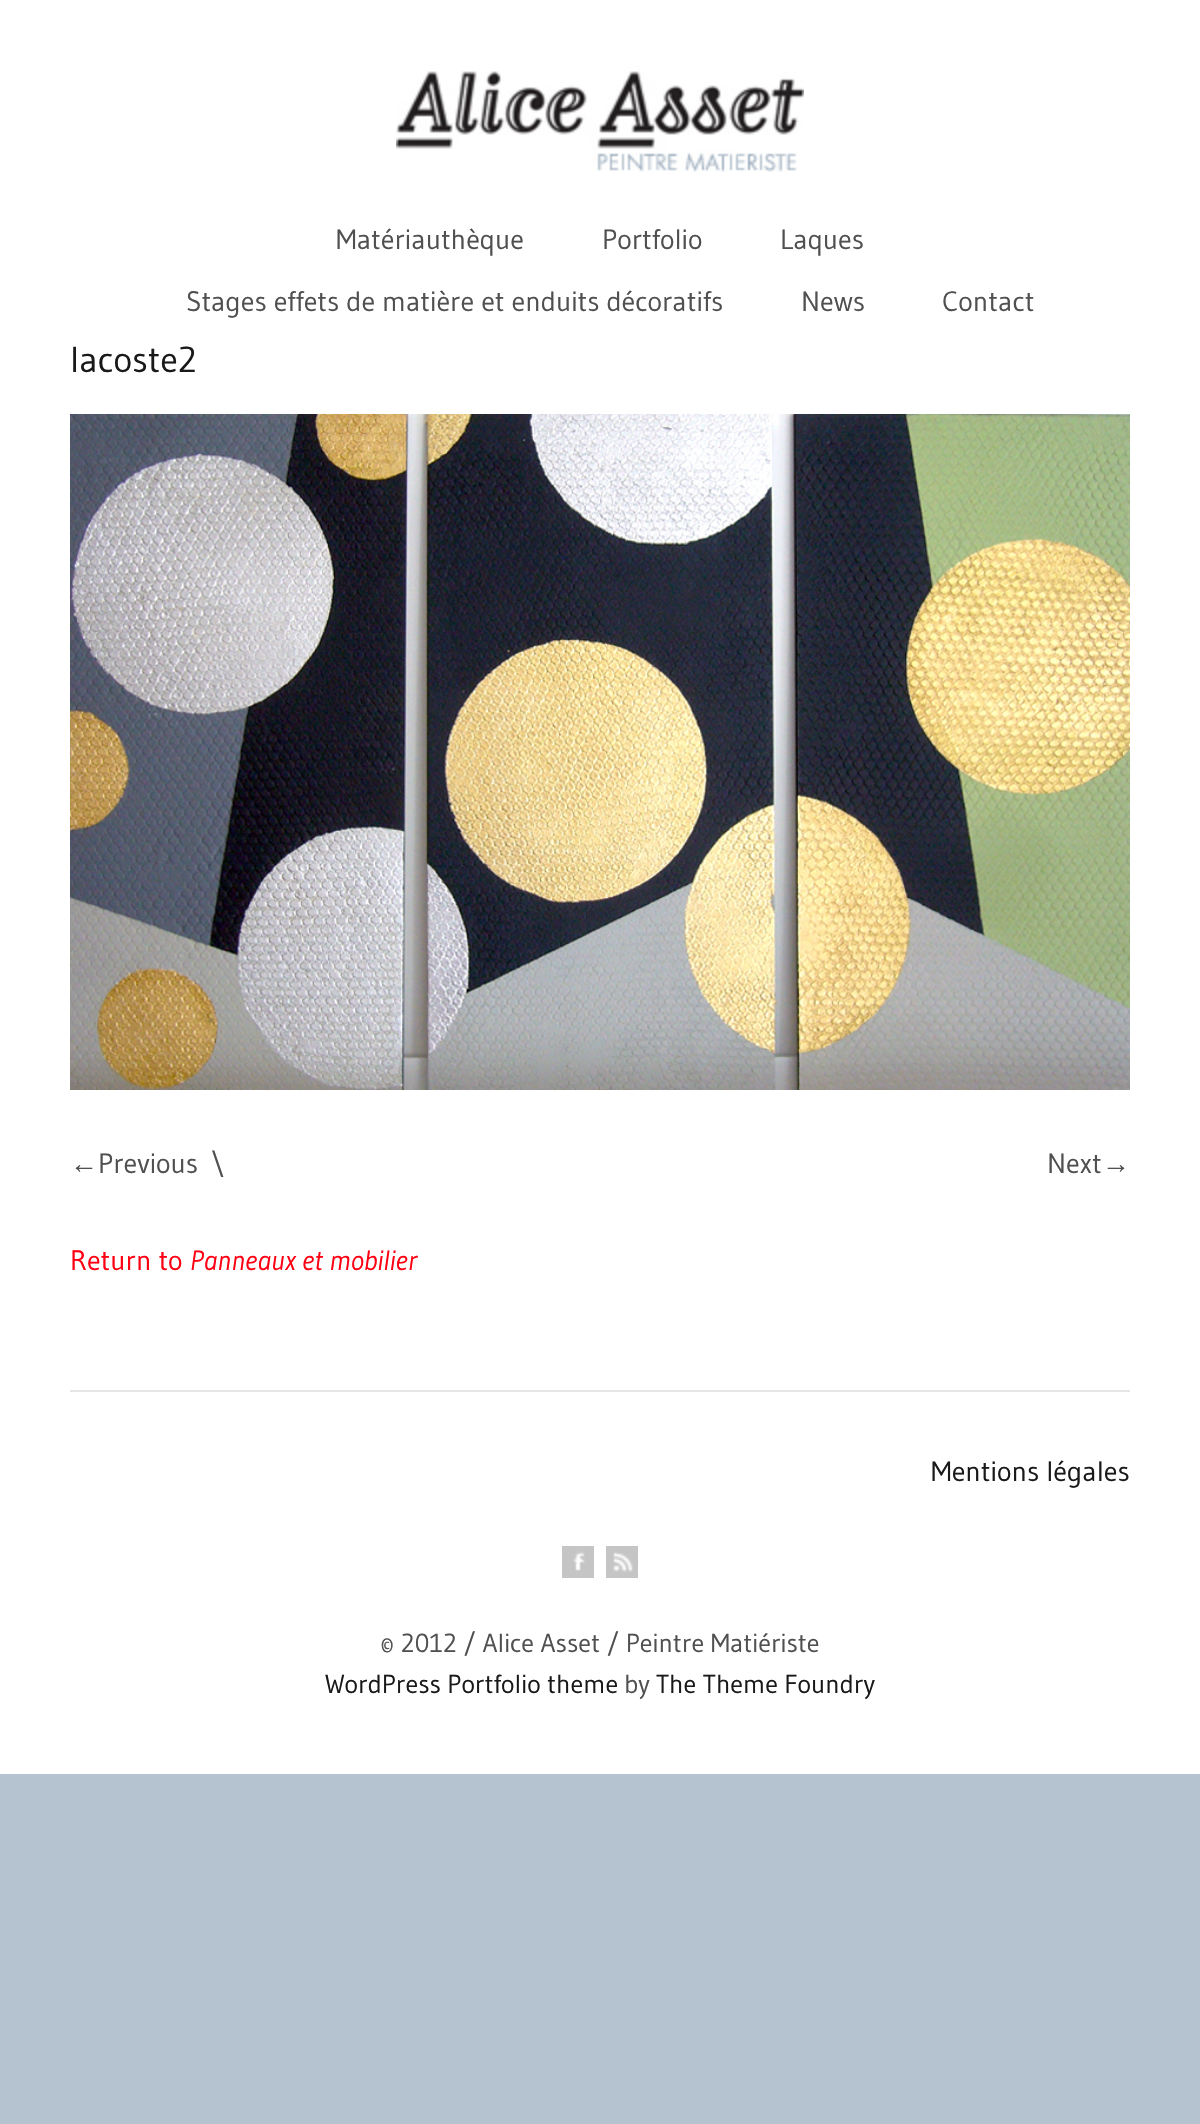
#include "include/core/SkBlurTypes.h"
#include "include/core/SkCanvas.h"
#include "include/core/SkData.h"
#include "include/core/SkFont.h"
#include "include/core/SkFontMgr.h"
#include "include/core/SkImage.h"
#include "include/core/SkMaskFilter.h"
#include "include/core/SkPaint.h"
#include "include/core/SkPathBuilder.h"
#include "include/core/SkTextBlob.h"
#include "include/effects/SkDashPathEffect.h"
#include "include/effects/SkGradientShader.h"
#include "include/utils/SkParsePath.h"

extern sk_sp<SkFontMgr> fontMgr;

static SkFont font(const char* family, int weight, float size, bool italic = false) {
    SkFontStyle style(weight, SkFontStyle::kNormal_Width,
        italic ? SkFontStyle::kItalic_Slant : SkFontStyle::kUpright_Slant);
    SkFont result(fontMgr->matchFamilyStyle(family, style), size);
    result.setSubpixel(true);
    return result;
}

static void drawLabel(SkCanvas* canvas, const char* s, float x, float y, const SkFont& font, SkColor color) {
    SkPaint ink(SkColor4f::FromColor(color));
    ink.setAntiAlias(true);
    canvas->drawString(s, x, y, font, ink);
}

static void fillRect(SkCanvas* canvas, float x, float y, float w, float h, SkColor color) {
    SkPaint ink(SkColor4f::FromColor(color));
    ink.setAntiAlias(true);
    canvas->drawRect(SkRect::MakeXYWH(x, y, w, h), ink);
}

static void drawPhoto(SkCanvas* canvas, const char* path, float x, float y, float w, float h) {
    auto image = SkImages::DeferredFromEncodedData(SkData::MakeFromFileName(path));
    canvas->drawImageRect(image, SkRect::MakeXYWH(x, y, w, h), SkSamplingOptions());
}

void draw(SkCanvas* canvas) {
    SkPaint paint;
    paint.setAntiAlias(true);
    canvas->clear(0xFFB5C2CF);
    fillRect(canvas, 0, 0, 1200, 1774, 0xFFFFFFFF);
    drawPhoto(canvas, "assets/img1.png", 396, 71, 408, 101);
    SkFont font1 = font("Gudea", 400, 28);
    drawLabel(canvas, "Matériauthèque", 336, 249, font1, 0xFF505050);
    drawLabel(canvas, "Portfolio", 602, 249, font1, 0xFF505050);
    drawLabel(canvas, "Laques", 780, 249, font1, 0xFF505050);
    drawLabel(canvas, "Stages effets de matière et enduits décoratifs", 186, 311, font1, 0xFF505050);
    drawLabel(canvas, "News", 801, 311, font1, 0xFF505050);
    drawLabel(canvas, "Contact", 942, 311, font1, 0xFF505050);
    SkFont font2 = font("Gudea", 400, 36);
    drawLabel(canvas, "lacoste2", 70, 372, font2, 0xFF191919);
    drawPhoto(canvas, "assets/img2.png", 70, 414, 1060, 676);
    SkFont font3 = font("Liberation Sans", 400, 28);
    drawLabel(canvas, "←", 70, 1173, font3, 0xFF505050);
    drawLabel(canvas, "Previous", 98, 1173, font1, 0xFF505050);
    drawLabel(canvas, "\\", 211, 1173, font1, 0xFF505050);
    drawLabel(canvas, "Next", 1047, 1173, font1, 0xFF505050);
    drawLabel(canvas, "→", 1102, 1173, font3, 0xFF505050);
    drawLabel(canvas, "Return to", 70, 1270, font1, 0xFFFF0012);
    SkFont font4 = font("Gudea", 400, 28, true);
    drawLabel(canvas, "Panneaux et mobilier", 190, 1270, font4, 0xFFFF0012);
    fillRect(canvas, 70, 1390, 1060, 2, 0xFFE5E5E5);
    drawLabel(canvas, "Mentions légales", 931, 1481, font1, 0xFF191919);
    drawPhoto(canvas, "assets/img3.png", 562, 1546, 32, 32);
    drawPhoto(canvas, "assets/img4.png", 606, 1546, 32, 32);
    SkFont font5 = font("Gudea", 400, 26);
    drawLabel(canvas, "© 2012 / Alice Asset / Peintre Matiériste", 380, 1652, font5, 0xFF505050);
    drawLabel(canvas, "WordPress Portfolio theme", 325, 1693, font5, 0xFF191919);
    drawLabel(canvas, "by", 624, 1693, font5, 0xFF505050);
    drawLabel(canvas, "The Theme Foundry", 656, 1693, font5, 0xFF191919);
}
